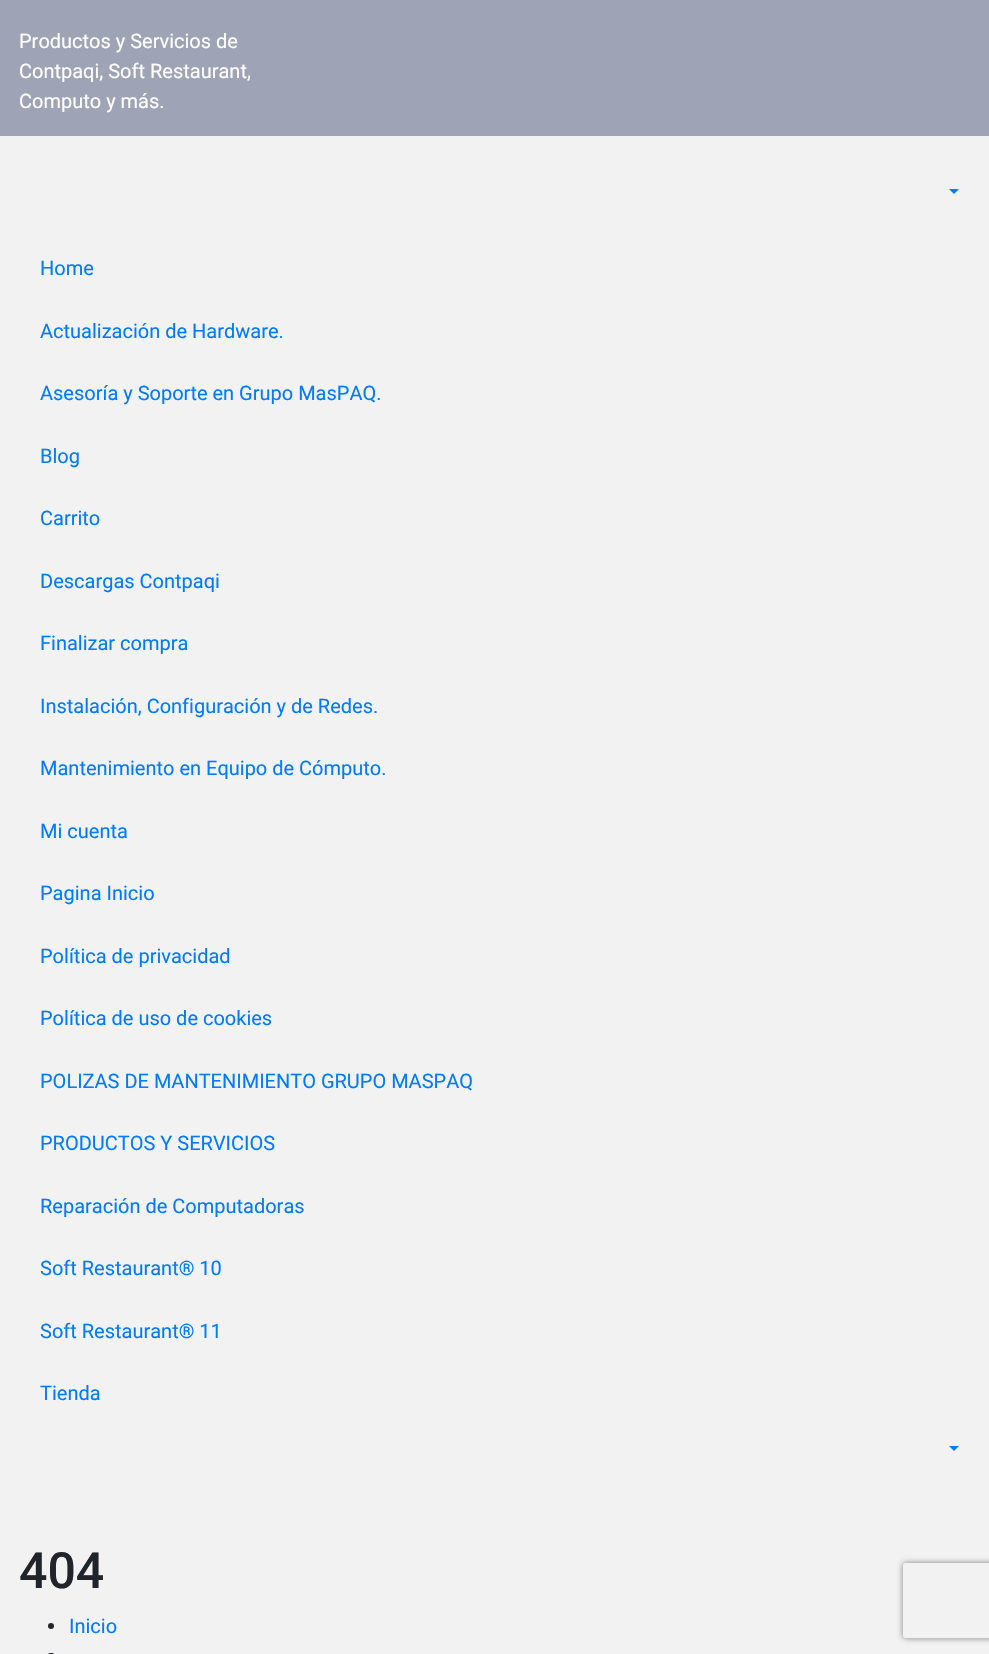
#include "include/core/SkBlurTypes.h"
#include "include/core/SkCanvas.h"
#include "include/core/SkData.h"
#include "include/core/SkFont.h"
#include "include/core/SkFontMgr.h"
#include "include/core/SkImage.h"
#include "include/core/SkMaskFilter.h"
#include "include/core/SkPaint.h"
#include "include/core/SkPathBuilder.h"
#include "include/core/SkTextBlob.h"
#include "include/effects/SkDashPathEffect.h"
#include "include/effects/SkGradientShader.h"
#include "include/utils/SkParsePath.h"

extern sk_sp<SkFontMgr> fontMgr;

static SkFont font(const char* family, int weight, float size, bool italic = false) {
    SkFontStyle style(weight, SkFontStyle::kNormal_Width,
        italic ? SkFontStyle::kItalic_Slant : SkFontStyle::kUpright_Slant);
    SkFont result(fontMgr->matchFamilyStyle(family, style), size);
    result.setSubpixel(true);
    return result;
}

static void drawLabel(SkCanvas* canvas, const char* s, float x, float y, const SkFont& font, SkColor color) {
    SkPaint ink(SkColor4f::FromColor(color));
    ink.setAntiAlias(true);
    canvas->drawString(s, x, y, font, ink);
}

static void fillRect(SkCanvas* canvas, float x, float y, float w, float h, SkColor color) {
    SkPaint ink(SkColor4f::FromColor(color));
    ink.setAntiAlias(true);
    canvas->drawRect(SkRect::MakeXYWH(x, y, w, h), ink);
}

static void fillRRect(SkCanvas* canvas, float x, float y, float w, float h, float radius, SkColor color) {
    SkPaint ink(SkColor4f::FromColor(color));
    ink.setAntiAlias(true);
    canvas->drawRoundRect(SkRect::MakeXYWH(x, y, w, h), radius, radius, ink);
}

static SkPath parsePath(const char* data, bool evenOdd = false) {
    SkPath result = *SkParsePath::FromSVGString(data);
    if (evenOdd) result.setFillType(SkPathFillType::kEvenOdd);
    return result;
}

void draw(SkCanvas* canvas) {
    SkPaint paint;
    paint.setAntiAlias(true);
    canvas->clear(0xFFF2F2F2);
    fillRect(canvas, 0, 0, 989, 136, 0xFF9EA4B6);
    SkFont font1 = font("Roboto", 400, 20);
    drawLabel(canvas, "Productos y Servicios de", 19, 48, font1, 0xFFFFFFFF);
    drawLabel(canvas, "Contpaqi, Soft Restaurant,", 19, 78, font1, 0xFFFFFFFF);
    drawLabel(canvas, "Computo y más.", 19, 108, font1, 0xFFFFFFFF);
    paint.setColor(0xFF007BFF);
    canvas->drawPath(parsePath("M949 189H959L954 194Z"), paint);
    drawLabel(canvas, "Home", 40, 275, font1, 0xFF007BFF);
    drawLabel(canvas, "Actualización de Hardware.", 40, 338, font1, 0xFF007BFF);
    drawLabel(canvas, "Asesoría y Soporte en Grupo MasPAQ.", 40, 400, font1, 0xFF007BFF);
    drawLabel(canvas, "Blog", 40, 463, font1, 0xFF007BFF);
    drawLabel(canvas, "Carrito", 40, 525, font1, 0xFF007BFF);
    drawLabel(canvas, "Descargas Contpaqi", 40, 588, font1, 0xFF007BFF);
    drawLabel(canvas, "Finalizar compra", 40, 650, font1, 0xFF007BFF);
    drawLabel(canvas, "Instalación, Configuración y de Redes.", 40, 713, font1, 0xFF007BFF);
    drawLabel(canvas, "Mantenimiento en Equipo de Cómputo.", 40, 775, font1, 0xFF007BFF);
    drawLabel(canvas, "Mi cuenta", 40, 838, font1, 0xFF007BFF);
    drawLabel(canvas, "Pagina Inicio", 40, 900, font1, 0xFF007BFF);
    drawLabel(canvas, "Política de privacidad", 40, 963, font1, 0xFF007BFF);
    drawLabel(canvas, "Política de uso de cookies", 40, 1025, font1, 0xFF007BFF);
    drawLabel(canvas, "POLIZAS DE MANTENIMIENTO GRUPO MASPAQ", 40, 1088, font1, 0xFF007BFF);
    drawLabel(canvas, "PRODUCTOS Y SERVICIOS", 40, 1150, font1, 0xFF007BFF);
    drawLabel(canvas, "Reparación de Computadoras", 40, 1213, font1, 0xFF007BFF);
    drawLabel(canvas, "Soft Restaurant® 10", 40, 1275, font1, 0xFF007BFF);
    drawLabel(canvas, "Soft Restaurant® 11", 40, 1338, font1, 0xFF007BFF);
    drawLabel(canvas, "Tienda", 40, 1400, font1, 0xFF007BFF);
    canvas->drawPath(parsePath("M949 1446H959L954 1451Z"), paint);
    SkFont font2 = font("Roboto", 500, 50);
    drawLabel(canvas, "404", 19, 1588, font2, 0xFF212529);
    paint.setColor(0xFF212529);
    canvas->drawCircle(51, 1626, 3, paint);
    drawLabel(canvas, "Inicio", 69, 1633, font1, 0xFF007BFF);
    fillRRect(canvas, 48, 1653, 6, 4, 3, 0xFF212529);
    canvas->save();
    canvas->clipPath(parsePath("M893 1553H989V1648H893ZM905.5 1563H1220.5C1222 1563 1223 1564 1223 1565.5V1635.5C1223 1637 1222 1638 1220.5 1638H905.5C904 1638 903 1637 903 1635.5V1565.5C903 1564 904 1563 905.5 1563Z", true), true);
    paint.setColor(0xFF808080);
    paint.setMaskFilter(SkMaskFilter::MakeBlur(kNormal_SkBlurStyle, 3));
    canvas->drawRoundRect(SkRect::MakeXYWH(903, 1563, 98, 75), 2.5f, 2.5f, paint);
    paint.setMaskFilter(nullptr);
    canvas->restore();
}
